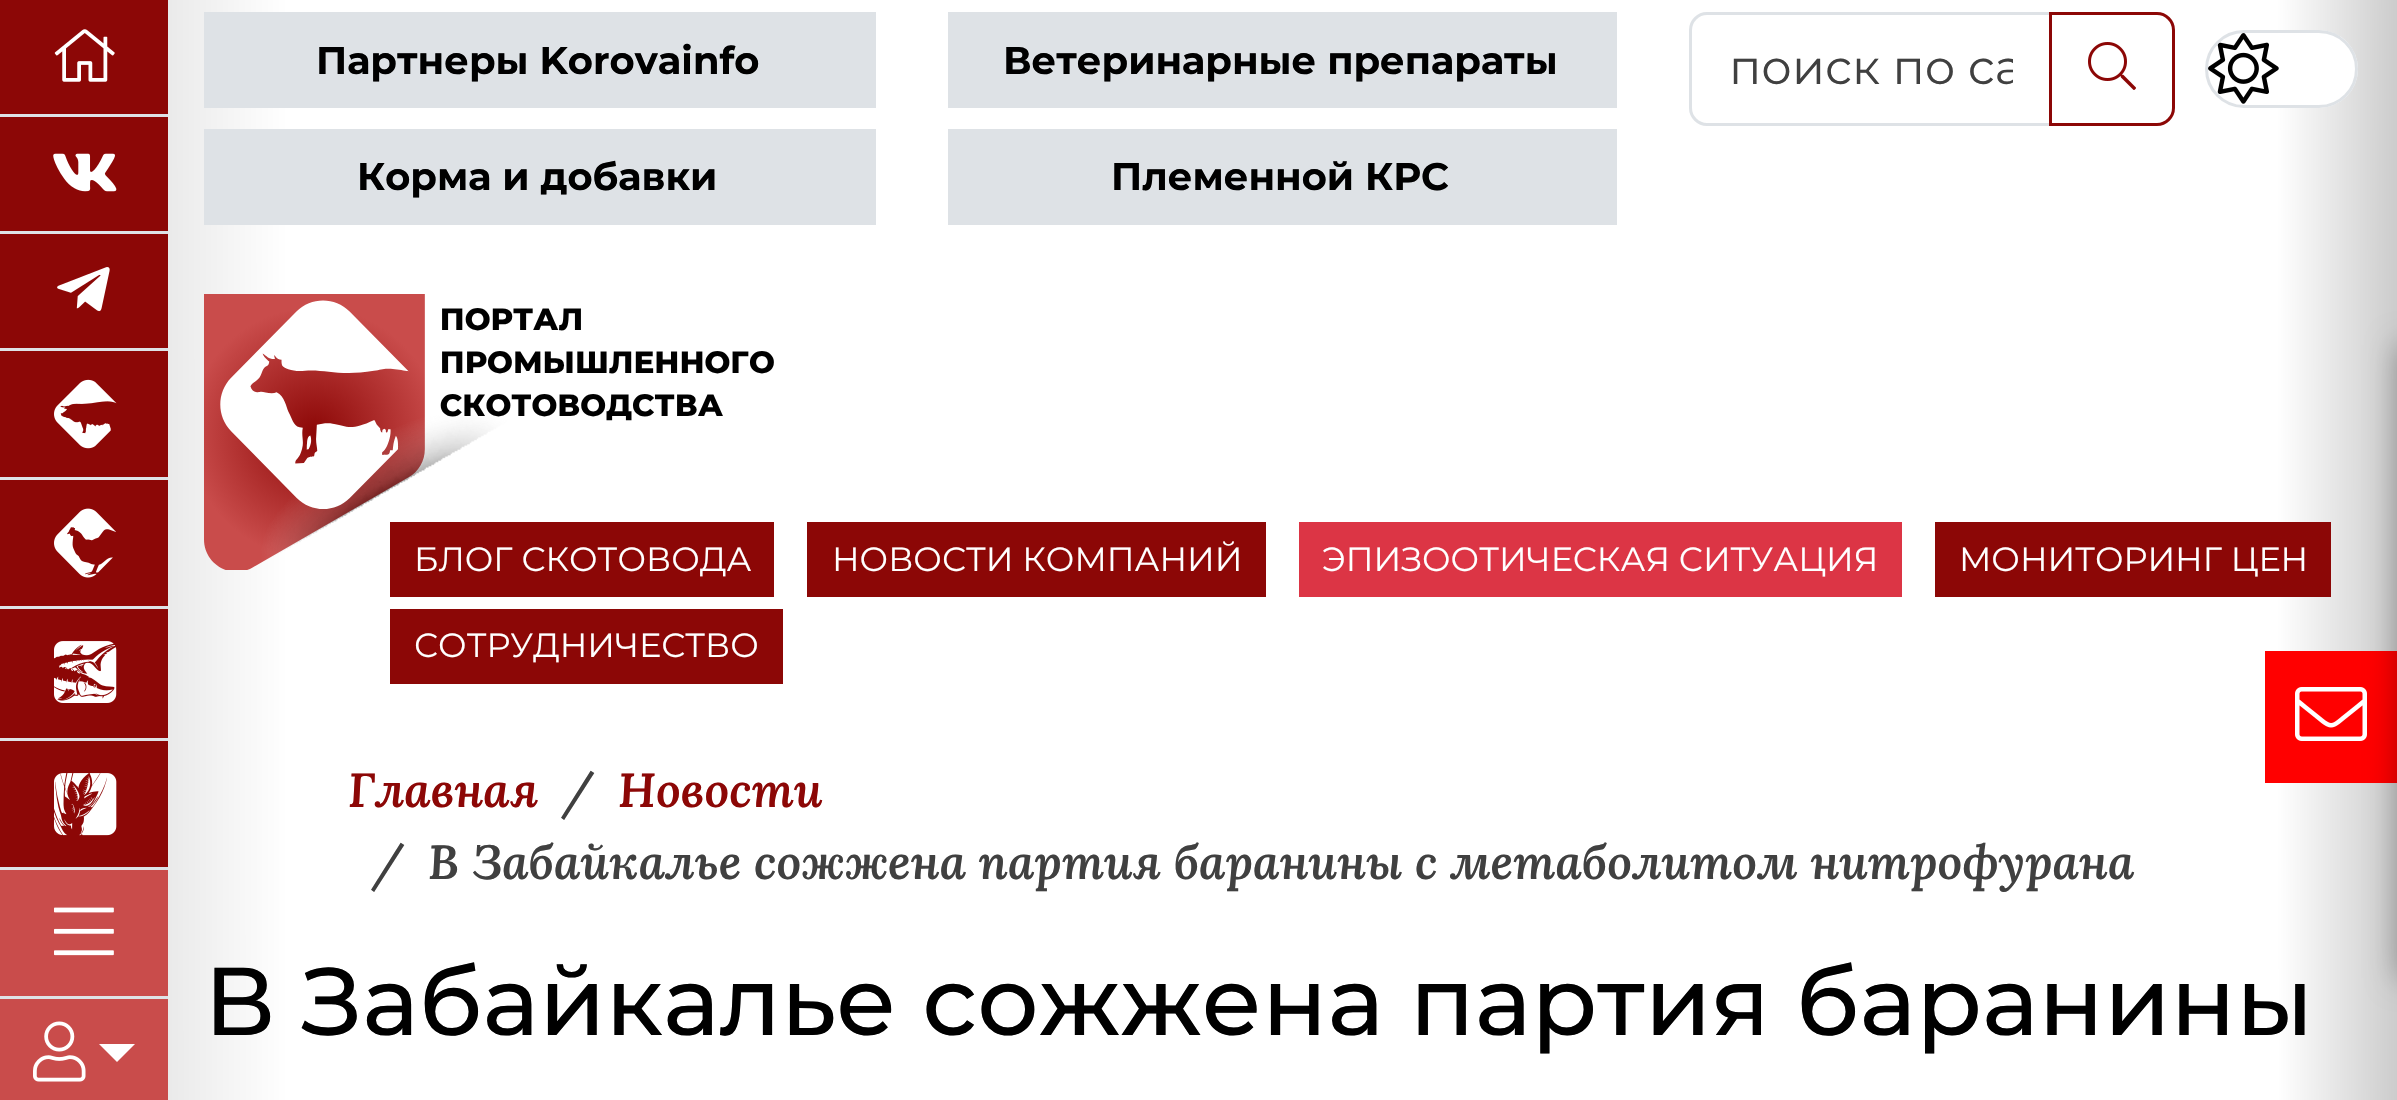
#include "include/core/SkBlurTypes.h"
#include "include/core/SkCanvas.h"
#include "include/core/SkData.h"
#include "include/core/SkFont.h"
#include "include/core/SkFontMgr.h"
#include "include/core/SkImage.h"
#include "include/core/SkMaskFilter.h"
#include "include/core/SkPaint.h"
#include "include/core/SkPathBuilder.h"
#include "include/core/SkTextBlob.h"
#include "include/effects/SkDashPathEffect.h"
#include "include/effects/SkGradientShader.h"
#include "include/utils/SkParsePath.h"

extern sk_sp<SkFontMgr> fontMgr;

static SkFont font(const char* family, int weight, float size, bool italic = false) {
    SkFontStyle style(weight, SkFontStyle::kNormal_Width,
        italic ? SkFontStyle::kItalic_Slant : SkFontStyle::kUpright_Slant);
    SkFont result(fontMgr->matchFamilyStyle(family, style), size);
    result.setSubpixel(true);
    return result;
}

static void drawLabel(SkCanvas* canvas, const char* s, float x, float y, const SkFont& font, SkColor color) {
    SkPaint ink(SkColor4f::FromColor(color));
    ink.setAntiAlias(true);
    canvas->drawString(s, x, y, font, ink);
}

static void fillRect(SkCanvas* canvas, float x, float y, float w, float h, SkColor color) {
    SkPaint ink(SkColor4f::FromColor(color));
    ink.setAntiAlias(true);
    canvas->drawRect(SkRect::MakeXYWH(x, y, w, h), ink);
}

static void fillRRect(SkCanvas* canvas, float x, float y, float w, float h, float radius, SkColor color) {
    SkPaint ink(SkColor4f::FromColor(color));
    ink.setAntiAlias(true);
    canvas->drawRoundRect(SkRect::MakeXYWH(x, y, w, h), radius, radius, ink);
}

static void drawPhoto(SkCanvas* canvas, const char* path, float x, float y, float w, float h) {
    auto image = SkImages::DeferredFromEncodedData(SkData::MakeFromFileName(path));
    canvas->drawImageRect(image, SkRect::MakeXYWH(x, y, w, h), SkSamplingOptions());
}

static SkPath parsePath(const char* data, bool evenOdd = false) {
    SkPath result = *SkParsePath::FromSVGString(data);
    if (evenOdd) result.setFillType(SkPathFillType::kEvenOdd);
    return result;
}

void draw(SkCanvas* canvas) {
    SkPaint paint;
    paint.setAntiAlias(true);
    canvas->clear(0xFFFFFFFF);
    {
        const SkColor colors[] = {0xFFCCCCCC, 0xFFFFFFFF, 0xFFFFFFFF, 0xFFCCCCCC};
        const float stops[] = {0, 0.12f, 0.95f, 1};
        const SkPoint ends[] = {{0, 551}, {2397, 550}};
        paint.setShader(SkGradientShader::MakeLinear(ends, colors, stops, 4, SkTileMode::kClamp));
        paint.setAlpha(255);
    }
    canvas->drawRect(SkRect::MakeXYWH(168, 0, 2229, 1100), paint);
    fillRect(canvas, 0, 870, 168, 230, 0xFFC94C4B);
    fillRect(canvas, 0, 0, 168, 114, 0xFF8C0706);
    fillRect(canvas, 0, 114, 168, 3, 0xFFDEE2E6);
    drawPhoto(canvas, "assets/img1.png", 54, 29, 61, 53);
    fillRect(canvas, 0, 117, 168, 114, 0xFF8C0706);
    fillRect(canvas, 0, 231, 168, 3, 0xFFDEE2E6);
    drawPhoto(canvas, "assets/img2.png", 53, 153, 64, 39);
    fillRect(canvas, 0, 234, 168, 114, 0xFF8C0706);
    fillRect(canvas, 0, 348, 168, 3, 0xFFDEE2E6);
    drawPhoto(canvas, "assets/img3.png", 57, 267, 53, 45);
    fillRect(canvas, 0, 351, 168, 126, 0xFF8C0706);
    fillRect(canvas, 0, 477, 168, 3, 0xFFDEE2E6);
    drawPhoto(canvas, "assets/img4.png", 54, 379, 63, 70);
    fillRect(canvas, 0, 480, 168, 126, 0xFF8C0706);
    fillRect(canvas, 0, 606, 168, 3, 0xFFDEE2E6);
    drawPhoto(canvas, "assets/img5.png", 54, 508, 62, 70);
    fillRect(canvas, 0, 609, 168, 129, 0xFF8C0706);
    fillRect(canvas, 0, 738, 168, 3, 0xFFDEE2E6);
    drawPhoto(canvas, "assets/img6.png", 54, 641, 63, 62);
    fillRect(canvas, 0, 741, 168, 126, 0xFF8C0706);
    fillRect(canvas, 0, 867, 168, 3, 0xFFDEE2E6);
    drawPhoto(canvas, "assets/img7.png", 54, 773, 63, 63);
    drawPhoto(canvas, "assets/img8.png", 54, 907, 60, 49);
    fillRect(canvas, 0, 996, 168, 3, 0xFFDEE2E6);
    drawPhoto(canvas, "assets/img9.png", 33, 1021, 53, 61);
    paint.setShader(nullptr);
    paint.setColor(0xFFFFFFFF);
    canvas->drawPath(parsePath("M99 1044H135L117 1062Z"), paint);
    fillRect(canvas, 204, 12, 672, 96, 0xFFDEE2E6);
    SkFont font1 = font("Montserrat", 700, 38.4f);
    drawLabel(canvas, "Партнеры Korovainfo", 316, 74, font1, 0xFF000000);
    fillRect(canvas, 948, 12, 669, 96, 0xFFDEE2E6);
    drawLabel(canvas, "Ветеринарные препараты", 1003, 74, font1, 0xFF000000);
    fillRect(canvas, 204, 129, 672, 96, 0xFFDEE2E6);
    drawLabel(canvas, "Корма и добавки", 357, 190, font1, 0xFF000000);
    fillRect(canvas, 948, 129, 669, 96, 0xFFDEE2E6);
    drawLabel(canvas, "Племенной КРС", 1111, 190, font1, 0xFF000000);
    paint.setStroke(true);
    paint.setStrokeWidth(3);
    paint.setColor(0xFFDEE2E6);
    canvas->drawPath(parsePath("M1707 13.5H2050.5V124.5H1707C1698 124.5 1690.5 117 1690.5 108V30C1690.5 21 1698 13.5 1707 13.5Z"), paint);
    canvas->save();
    canvas->clipRect(SkRect::MakeXYWH(1728, 39, 285, 57));
    SkFont font2 = font("Montserrat", 400, 48);
    drawLabel(canvas, "поиск по са", 1729, 84, font2, 0xFF404040);
    canvas->restore();
    paint.setColor(0xFF8C0706);
    canvas->drawPath(parsePath("M2050.5 13.5H2157C2166 13.5 2173.5 21 2173.5 30V108C2173.5 117 2166 124.5 2157 124.5H2050.5Z"), paint);
    drawPhoto(canvas, "assets/img10.png", 2088, 42, 48, 48);
    fillRRect(canvas, 2205, 30, 153, 78, 39, 0xFFFFFFFF);
    drawPhoto(canvas, "assets/img11.png", 2208, 33, 71, 71);
    paint.setColor(0xFFDEE2E6);
    canvas->drawRoundRect(SkRect::MakeXYWH(2206.5f, 31.5f, 150, 75), 37.5f, 37.5f, paint);
    fillRect(canvas, 390, 522, 384, 75, 0xFF8C0706);
    SkFont font3 = font("Montserrat", 400, 33.6f);
    drawLabel(canvas, "БЛОГ СКОТОВОДА", 414, 571, font3, 0xFFFFFFFF);
    drawPhoto(canvas, "assets/img12.png", 204, 294, 570, 276);
    fillRect(canvas, 807, 522, 459, 75, 0xFF8C0706);
    drawLabel(canvas, "НОВОСТИ КОМПАНИЙ", 832, 571, font3, 0xFFFFFFFF);
    fillRect(canvas, 1299, 522, 603, 75, 0xFFDC3545);
    drawLabel(canvas, "ЭПИЗООТИЧЕСКАЯ СИТУАЦИЯ", 1322, 571, font3, 0xFFFFFFFF);
    fillRect(canvas, 1935, 522, 396, 75, 0xFF8C0706);
    drawLabel(canvas, "МОНИТОРИНГ ЦЕН", 1959, 571, font3, 0xFFFFFFFF);
    fillRect(canvas, 390, 609, 393, 75, 0xFF8C0706);
    drawLabel(canvas, "СОТРУДНИЧЕСТВО", 414, 657, font3, 0xFFFFFFFF);
    fillRect(canvas, 2265, 651, 132, 132, 0xFFFF0000);
    drawPhoto(canvas, "assets/img13.png", 2295, 687, 72, 54);
    paint.setStroke(false);
    paint.setColor(0x4D000000);
    paint.setMaskFilter(SkMaskFilter::MakeBlur(kNormal_SkBlurStyle, 15));
    canvas->drawRect(SkRect::MakeXYWH(2397, 345, 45, 633), paint);
    paint.setMaskFilter(nullptr);
    SkFont font4 = font("Lora", 600, 48, true);
    drawLabel(canvas, "Главная", 348, 807, font4, 0xFF8C0706);
    drawLabel(canvas, "/", 562, 807, font4, 0xFF404040);
    drawLabel(canvas, "Новости", 618, 807, font4, 0xFF8C0706);
    drawLabel(canvas, "/", 372, 879, font4, 0xFF404040);
    drawLabel(canvas, "В Забайкалье сожжена партия баранины с метаболитом нитрофурана", 428, 879, font4, 0xFF404040);
    SkFont font5 = font("Montserrat", 500, 96);
    drawLabel(canvas, "В Забайкалье сожжена партия баранины", 204, 1035, font5, 0xFF000000);
}
